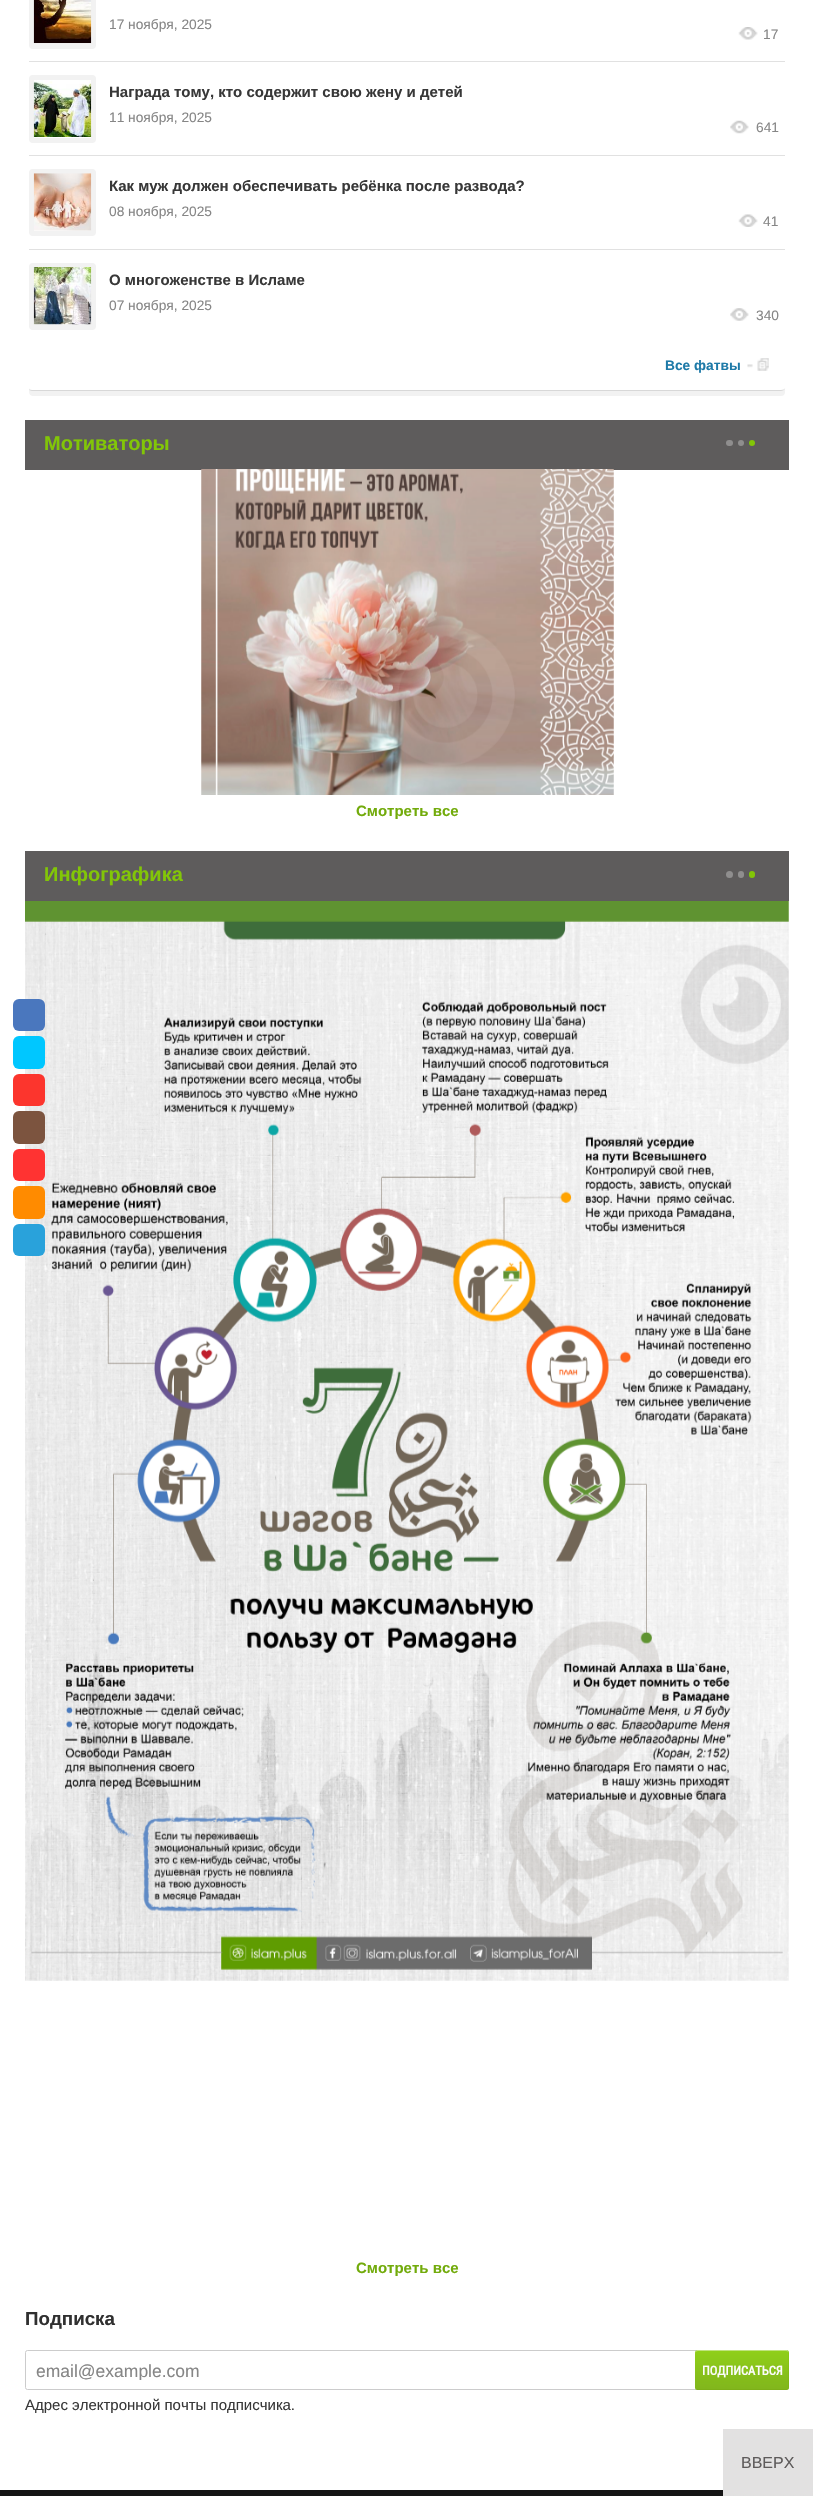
#include "include/core/SkBlurTypes.h"
#include "include/core/SkCanvas.h"
#include "include/core/SkData.h"
#include "include/core/SkFont.h"
#include "include/core/SkFontMgr.h"
#include "include/core/SkImage.h"
#include "include/core/SkMaskFilter.h"
#include "include/core/SkPaint.h"
#include "include/core/SkPathBuilder.h"
#include "include/core/SkTextBlob.h"
#include "include/effects/SkDashPathEffect.h"
#include "include/effects/SkGradientShader.h"
#include "include/utils/SkParsePath.h"

extern sk_sp<SkFontMgr> fontMgr;

static SkFont font(const char* family, int weight, float size, bool italic = false) {
    SkFontStyle style(weight, SkFontStyle::kNormal_Width,
        italic ? SkFontStyle::kItalic_Slant : SkFontStyle::kUpright_Slant);
    SkFont result(fontMgr->matchFamilyStyle(family, style), size);
    result.setSubpixel(true);
    return result;
}

static void drawLabel(SkCanvas* canvas, const char* s, float x, float y, const SkFont& font, SkColor color) {
    SkPaint ink(SkColor4f::FromColor(color));
    ink.setAntiAlias(true);
    canvas->drawString(s, x, y, font, ink);
}

static void fillRect(SkCanvas* canvas, float x, float y, float w, float h, SkColor color) {
    SkPaint ink(SkColor4f::FromColor(color));
    ink.setAntiAlias(true);
    canvas->drawRect(SkRect::MakeXYWH(x, y, w, h), ink);
}

static void fillRRect(SkCanvas* canvas, float x, float y, float w, float h, float radius, SkColor color) {
    SkPaint ink(SkColor4f::FromColor(color));
    ink.setAntiAlias(true);
    canvas->drawRoundRect(SkRect::MakeXYWH(x, y, w, h), radius, radius, ink);
}

static void drawPhoto(SkCanvas* canvas, const char* path, float x, float y, float w, float h) {
    auto image = SkImages::DeferredFromEncodedData(SkData::MakeFromFileName(path));
    canvas->drawImageRect(image, SkRect::MakeXYWH(x, y, w, h), SkSamplingOptions());
}

static SkPath parsePath(const char* data, bool evenOdd = false) {
    SkPath result = *SkParsePath::FromSVGString(data);
    if (evenOdd) result.setFillType(SkPathFillType::kEvenOdd);
    return result;
}

void draw(SkCanvas* canvas) {
    SkPaint paint;
    paint.setAntiAlias(true);
    canvas->clear(0xFFFFFFFF);
    paint.setColor(0xFFF2F2F2);
    canvas->drawPath(parsePath("M29 389C29 392 29 396 33 396H781C786 396 785 391 785 388C785 390 783 391 781 391H32C31 391 30 390 29 389Z"), paint);
    paint.setColor(0xFFD8D8D8);
    canvas->drawPath(parsePath("M781 391C783 391 785 390 785 388C785 389 783 390 781 390H32C30 390 29 389 29 388C29 390 30 391 32 391Z"), paint);
    paint.setStroke(true);
    paint.setStrokeWidth(5);
    paint.setColor(0xFFF2F2F2);
    canvas->drawRoundRect(SkRect::MakeXYWH(31.5f, -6.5f, 62, 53), 1.5f, 1.5f, paint);
    drawPhoto(canvas, "assets/img1.png", 33, 0, 59, 44);
    SkFont font1 = font("Liberation Sans", 400, 13.75f);
    drawLabel(canvas, "17 ноября, 2025", 109, 29, font1, 0xFF868686);
    drawPhoto(canvas, "assets/img2.png", 738, 27, 20, 13);
    drawLabel(canvas, "17", 763, 39, font1, 0xFF868686);
    fillRect(canvas, 29, 61, 756, 1, 0xFFE1E1E1);
    canvas->drawRoundRect(SkRect::MakeXYWH(31.5f, 77.5f, 62, 63), 1.5f, 1.5f, paint);
    drawPhoto(canvas, "assets/img3.png", 33, 80, 59, 57);
    canvas->save();
    canvas->clipRect(SkRect::MakeXYWH(109, 85, 529, 15));
    SkFont font2 = font("Liberation Sans", 700, 15);
    drawLabel(canvas, "Награда тому, кто содержит свою жену и детей", 109, 97, font2, 0xFF383838);
    canvas->restore();
    drawLabel(canvas, "11 ноября, 2025", 109, 122, font1, 0xFF868686);
    drawPhoto(canvas, "assets/img4.png", 730, 120, 19, 14);
    drawLabel(canvas, "641", 756, 132, font1, 0xFF868686);
    fillRect(canvas, 29, 155, 756, 1, 0xFFE1E1E1);
    canvas->drawRoundRect(SkRect::MakeXYWH(31.5f, 171.5f, 62, 62), 1.5f, 1.5f, paint);
    drawPhoto(canvas, "assets/img5.png", 33, 173, 59, 58);
    canvas->save();
    canvas->clipRect(SkRect::MakeXYWH(109, 179, 529, 15));
    drawLabel(canvas, "Как муж должен обеспечивать ребёнка после развода?", 109, 191, font2, 0xFF383838);
    canvas->restore();
    drawLabel(canvas, "08 ноября, 2025", 109, 216, font1, 0xFF868686);
    drawPhoto(canvas, "assets/img6.png", 738, 214, 20, 13);
    drawLabel(canvas, "41", 763, 226, font1, 0xFF868686);
    fillRect(canvas, 29, 249, 756, 1, 0xFFE1E1E1);
    canvas->drawRoundRect(SkRect::MakeXYWH(31.5f, 265.5f, 62, 62), 1.5f, 1.5f, paint);
    drawPhoto(canvas, "assets/img7.png", 33, 267, 59, 58);
    drawLabel(canvas, "О многоженстве в Исламе", 109, 285, font2, 0xFF383838);
    drawLabel(canvas, "07 ноября, 2025", 109, 310, font1, 0xFF868686);
    drawPhoto(canvas, "assets/img8.png", 730, 308, 19, 13);
    drawLabel(canvas, "340", 756, 320, font1, 0xFF868686);
    SkFont font3 = font("Liberation Sans", 700, 13.75f);
    drawLabel(canvas, "Все фатвы", 665, 370, font3, 0xFF1E7AA8);
    drawPhoto(canvas, "assets/img9.png", 747, 358, 22, 13);
    fillRect(canvas, 25, 420, 764, 50, 0xFF5E5C5C);
    SkFont font4 = font("Liberation Sans", 700, 20);
    drawLabel(canvas, "Мотиваторы", 44, 450, font4, 0xFF82C607);
    fillRRect(canvas, 726, 440, 7, 6, 3, 0xFF8F8E8E);
    paint.setStroke(false);
    paint.setColor(0xFF8F8E8E);
    canvas->drawCircle(741, 443, 3, paint);
    paint.setColor(0xFF82C607);
    canvas->drawCircle(752, 443, 3, paint);
    drawPhoto(canvas, "assets/img10.png", 201, 469, 413, 326);
    drawLabel(canvas, "Смотреть все", 356, 816, font2, 0xFF72AB0B);
    fillRect(canvas, 25, 851, 764, 50, 0xFF5E5C5C);
    drawLabel(canvas, "Инфографика", 44, 881, font4, 0xFF82C607);
    paint.setColor(0xFF8F8E8E);
    canvas->drawCircle(729.5f, 874.5f, 3.5f, paint);
    fillRRect(canvas, 738, 871, 6, 7, 3, 0xFF8F8E8E);
    fillRRect(canvas, 749, 871, 6, 7, 3, 0xFF82C607);
    drawPhoto(canvas, "assets/img11.png", 25, 901, 764, 1080);
    drawLabel(canvas, "Смотреть все", 356, 2273, font2, 0xFF72AB0B);
    SkFont font5 = font("Liberation Sans", 700, 18.75f);
    drawLabel(canvas, "Подписка", 25, 2325, font5, 0xFF303030);
    paint.setStroke(true);
    paint.setStrokeWidth(1);
    paint.setColor(0xFFCCCCCC);
    canvas->drawRoundRect(SkRect::MakeXYWH(25.5f, 2350.5f, 763, 39), 2, 2, paint);
    canvas->save();
    canvas->clipRect(SkRect::MakeXYWH(36, 2360, 652, 20));
    SkFont font6 = font("Liberation Sans", 400, 17.5f);
    drawLabel(canvas, "email@example.com", 36, 2377, font6, 0xFF868686);
    canvas->restore();
    SkFont font7 = font("Liberation Sans", 400, 15);
    drawLabel(canvas, "Адрес электронной почты подписчика.", 25, 2410, font7, 0xFF383838);
    paint.setStroke(false);
    {
        const SkColor colors[] = {0xE684CB00, 0xE673AD03};
        const float stops[] = {0, 1};
        const SkPoint ends[] = {{742, 2350}, {742, 2390}};
        paint.setShader(SkGradientShader::MakeLinear(ends, colors, stops, 2, SkTileMode::kClamp));
        paint.setAlpha(255);
    }
    canvas->drawRoundRect(SkRect::MakeXYWH(695, 2350, 94, 40), 2.5f, 2.5f, paint);
    paint.setShader(nullptr);
    paint.setColor(0x73FFFFFF);
    canvas->drawPath(parsePath("M698 2351H786C788 2351 789 2352 789 2354C789 2346 777 2350 772 2350H712C707 2350 695 2346 695 2354C695 2352 696 2351 698 2351Z"), paint);
    SkFont font8 = font("Roboto Condensed", 700, 12.5f);
    drawLabel(canvas, "ПОДПИСАТЬСЯ", 702, 2375, font8, 0xFFFCFCFC);
    fillRRect(canvas, 13, 999, 32, 32, 6, 0xFF4A77BE);
    fillRRect(canvas, 13, 1036, 32, 33, 6, 0xFF00C7FF);
    fillRRect(canvas, 13, 1074, 32, 32, 6, 0xFFFC352D);
    fillRRect(canvas, 13, 1111, 32, 33, 6, 0xFF7C543F);
    fillRRect(canvas, 13, 1149, 32, 32, 6, 0xFFFF3332);
    fillRRect(canvas, 13, 1186, 32, 33, 6, 0xFFFF8B00);
    fillRRect(canvas, 13, 1224, 32, 32, 6, 0xFF29A2DB);
    fillRect(canvas, 0, 2490, 723, 6, 0xFF151515);
    fillRect(canvas, 723, 2429, 90, 67, 0xFFE2E1E1);
    SkFont font9 = font("Liberation Sans", 400, 16);
    drawLabel(canvas, "ВВЕРХ", 741, 2468, font9, 0xFF5E5B5B);
}
